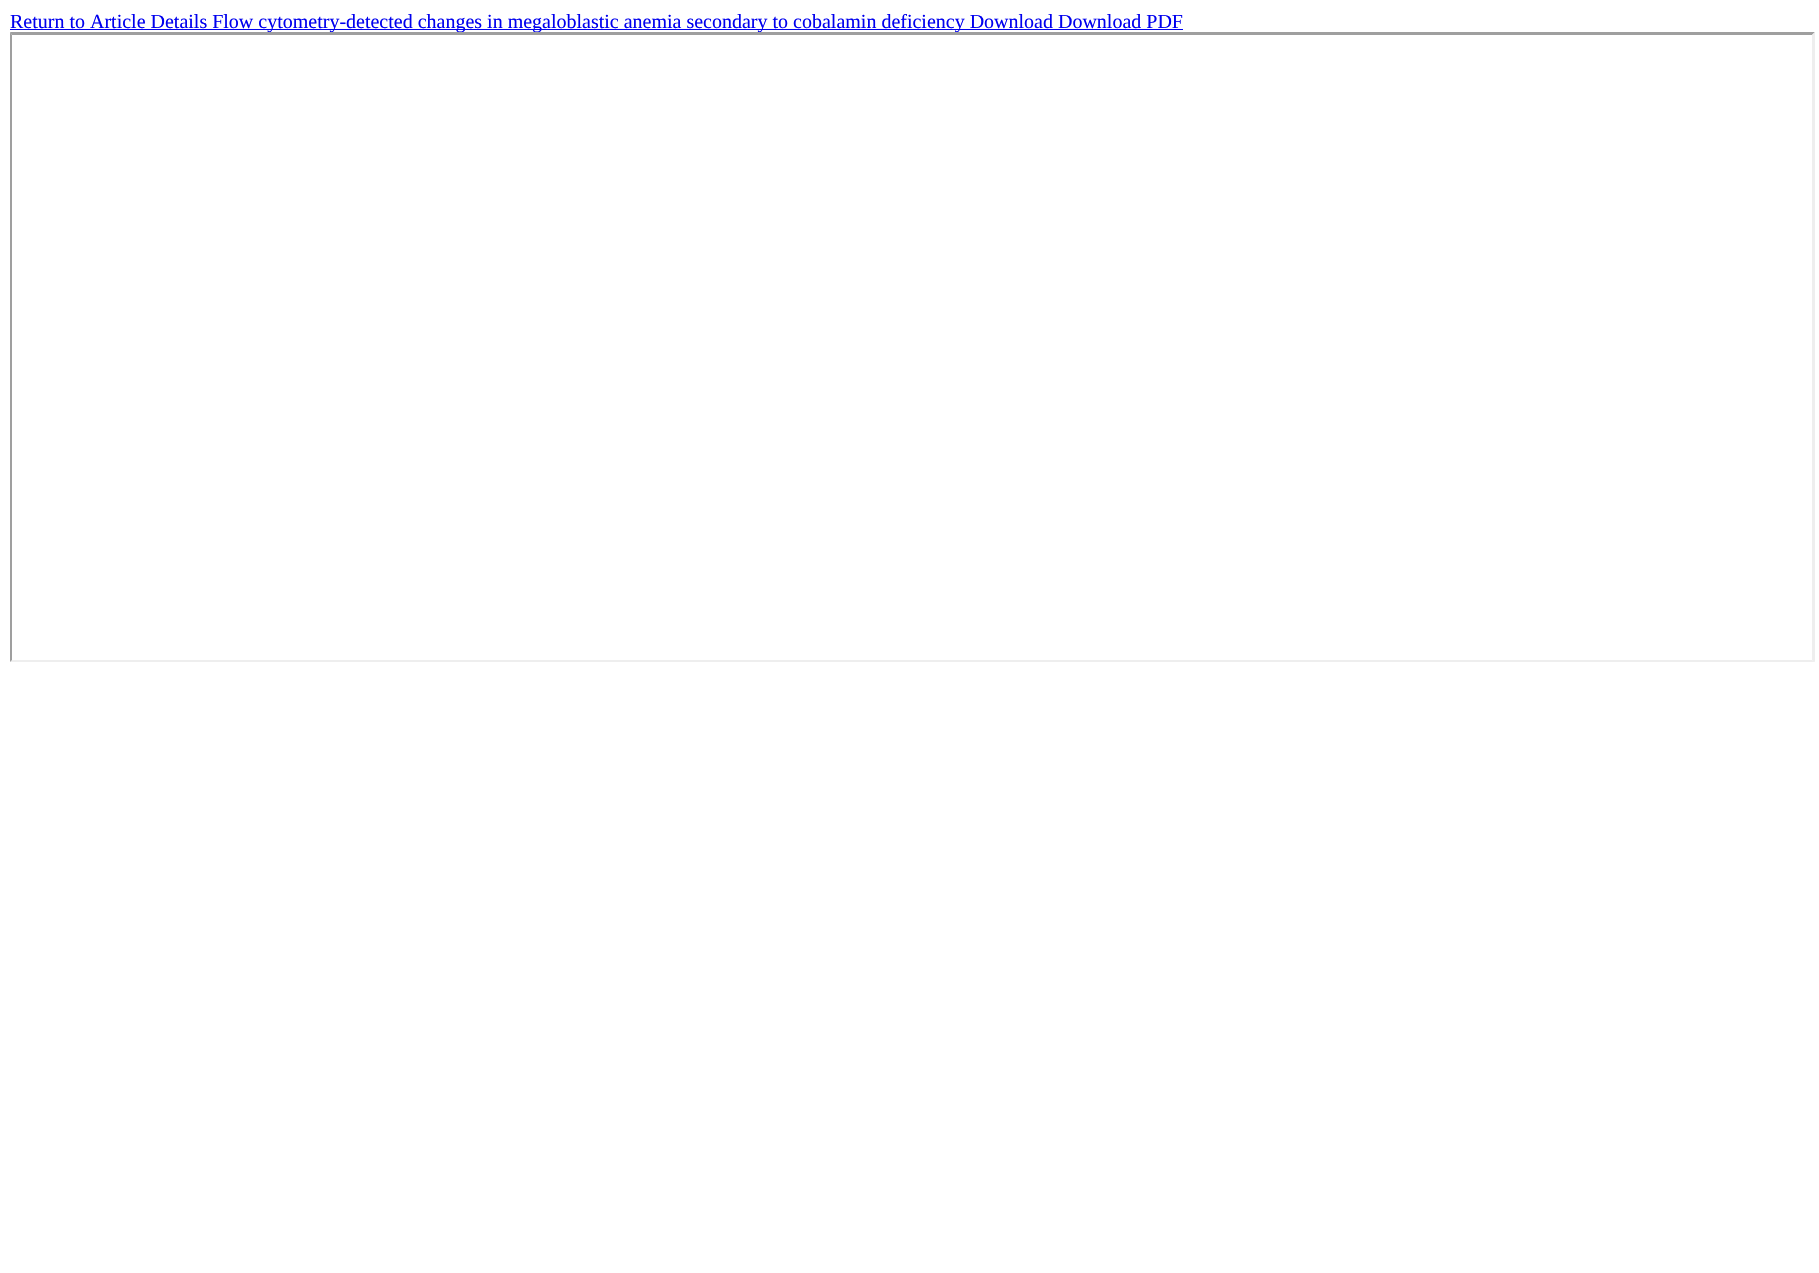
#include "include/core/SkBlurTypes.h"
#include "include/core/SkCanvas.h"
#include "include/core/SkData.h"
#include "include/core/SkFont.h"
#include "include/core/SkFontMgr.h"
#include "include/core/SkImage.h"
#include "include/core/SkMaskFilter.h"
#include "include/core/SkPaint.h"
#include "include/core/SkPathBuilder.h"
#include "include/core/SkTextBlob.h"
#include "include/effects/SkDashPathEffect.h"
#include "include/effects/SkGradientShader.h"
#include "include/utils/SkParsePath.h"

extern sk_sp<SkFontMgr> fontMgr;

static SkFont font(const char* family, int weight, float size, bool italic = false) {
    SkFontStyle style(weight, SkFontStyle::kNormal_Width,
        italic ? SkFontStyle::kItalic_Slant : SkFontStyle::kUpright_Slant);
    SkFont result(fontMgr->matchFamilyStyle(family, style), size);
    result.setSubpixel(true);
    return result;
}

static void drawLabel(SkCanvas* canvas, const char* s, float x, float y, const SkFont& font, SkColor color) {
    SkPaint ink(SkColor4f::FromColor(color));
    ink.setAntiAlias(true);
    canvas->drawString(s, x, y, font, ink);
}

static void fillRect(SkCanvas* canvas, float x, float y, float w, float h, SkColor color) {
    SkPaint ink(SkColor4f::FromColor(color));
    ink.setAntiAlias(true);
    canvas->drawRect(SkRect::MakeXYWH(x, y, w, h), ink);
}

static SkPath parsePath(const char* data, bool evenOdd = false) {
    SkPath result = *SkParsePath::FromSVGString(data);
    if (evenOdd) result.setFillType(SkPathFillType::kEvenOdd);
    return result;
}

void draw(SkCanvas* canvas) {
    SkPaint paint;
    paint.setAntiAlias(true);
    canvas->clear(0xFFFFFFFF);
    fillRect(canvas, 10, 29, 1173, 1, 0xFF0000EE);
    SkFont font1 = font("Liberation Serif", 400, 20);
    drawLabel(canvas, "Return to Article Details Flow cytometry-detected changes in megaloblastic anemia secondary to cobalamin deficiency Download Download PDF", 10, 28, font1, 0xFF0000EE);
    paint.setColor(0xFF9F9F9F);
    canvas->drawPath(parsePath("M10 32H1815L1812 35H12Z"), paint);
    paint.setColor(0xFFEEEEEE);
    canvas->drawPath(parsePath("M1815 32V662L1812 660V35Z"), paint);
    canvas->drawPath(parsePath("M1815 662H10L12 660H1812Z"), paint);
    paint.setColor(0xFF9F9F9F);
    canvas->drawPath(parsePath("M10 662V32L12 35V660Z"), paint);
}
